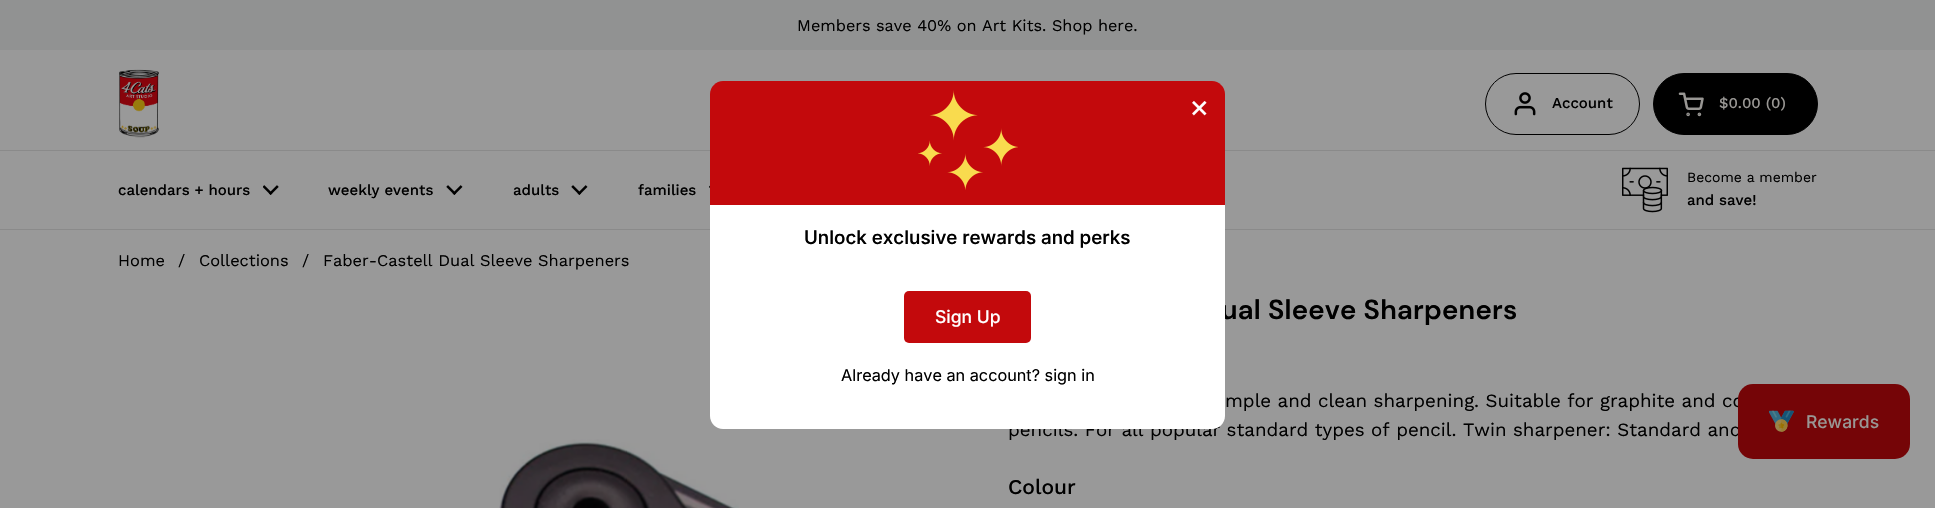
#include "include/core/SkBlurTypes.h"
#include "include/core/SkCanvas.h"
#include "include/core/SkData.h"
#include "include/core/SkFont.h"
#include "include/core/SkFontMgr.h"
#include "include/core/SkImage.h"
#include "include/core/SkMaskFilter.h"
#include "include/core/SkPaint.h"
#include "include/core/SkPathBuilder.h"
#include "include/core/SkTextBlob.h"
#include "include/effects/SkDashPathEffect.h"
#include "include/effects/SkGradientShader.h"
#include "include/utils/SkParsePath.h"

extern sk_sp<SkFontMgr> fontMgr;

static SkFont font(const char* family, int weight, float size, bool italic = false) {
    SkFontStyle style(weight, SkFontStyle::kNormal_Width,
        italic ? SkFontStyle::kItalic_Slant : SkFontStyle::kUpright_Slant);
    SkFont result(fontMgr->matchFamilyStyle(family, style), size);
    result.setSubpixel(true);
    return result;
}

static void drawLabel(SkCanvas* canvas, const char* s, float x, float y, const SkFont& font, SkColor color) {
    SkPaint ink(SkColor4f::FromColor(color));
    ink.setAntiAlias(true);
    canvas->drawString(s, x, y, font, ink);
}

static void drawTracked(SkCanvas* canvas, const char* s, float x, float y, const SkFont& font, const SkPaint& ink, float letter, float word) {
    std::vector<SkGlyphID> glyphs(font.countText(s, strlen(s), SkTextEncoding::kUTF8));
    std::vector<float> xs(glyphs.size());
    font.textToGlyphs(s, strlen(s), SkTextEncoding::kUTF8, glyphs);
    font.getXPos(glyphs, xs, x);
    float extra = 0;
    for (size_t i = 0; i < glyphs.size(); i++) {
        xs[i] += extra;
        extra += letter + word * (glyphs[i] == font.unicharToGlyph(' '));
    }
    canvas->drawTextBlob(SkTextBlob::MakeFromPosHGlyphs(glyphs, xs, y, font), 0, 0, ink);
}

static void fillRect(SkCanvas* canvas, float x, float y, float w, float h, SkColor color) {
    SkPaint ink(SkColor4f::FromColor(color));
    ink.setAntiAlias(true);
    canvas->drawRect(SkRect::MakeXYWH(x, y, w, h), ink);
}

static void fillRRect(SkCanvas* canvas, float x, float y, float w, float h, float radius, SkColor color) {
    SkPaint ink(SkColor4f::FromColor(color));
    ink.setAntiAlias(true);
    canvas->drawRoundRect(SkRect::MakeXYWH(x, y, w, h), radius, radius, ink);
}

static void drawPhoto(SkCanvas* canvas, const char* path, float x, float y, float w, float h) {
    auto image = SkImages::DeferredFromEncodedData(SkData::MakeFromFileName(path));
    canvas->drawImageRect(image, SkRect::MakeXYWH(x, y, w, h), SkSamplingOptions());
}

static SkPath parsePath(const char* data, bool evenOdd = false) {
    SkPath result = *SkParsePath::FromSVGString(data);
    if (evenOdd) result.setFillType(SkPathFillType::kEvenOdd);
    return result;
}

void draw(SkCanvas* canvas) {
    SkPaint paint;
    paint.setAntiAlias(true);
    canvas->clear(0xFF999999);
    fillRect(canvas, 0, 0, 1935, 50, 0xFF919292);
    SkFont font1 = font("Work Sans", 400, 16.25f);
    drawLabel(canvas, "Members save 40% on Art Kits. Shop here.", 797, 31, font1, 0xFF000000);
    fillRect(canvas, 0, 150, 1935, 1, 0xFF8A8A8A);
    drawPhoto(canvas, "assets/img1.png", 119, 69, 40, 69);
    paint.setStroke(true);
    paint.setStrokeWidth(1);
    paint.setColor(0xFF000000);
    canvas->drawRoundRect(SkRect::MakeXYWH(1485.5f, 73.5f, 154, 61), 30.5f, 30.5f, paint);
    drawPhoto(canvas, "assets/img2.png", 1514, 92, 22, 24);
    SkFont font2 = font("Work Sans", 500, 15);
    drawLabel(canvas, "Account", 1552, 108, font2, 0xFF000000);
    paint.setStroke(false);
    canvas->drawRoundRect(SkRect::MakeXYWH(1653.5f, 73.5f, 164, 61), 30.5f, 30.5f, paint);
    paint.setStroke(true);
    canvas->drawRoundRect(SkRect::MakeXYWH(1653.5f, 73.5f, 164, 61), 30.5f, 30.5f, paint);
    drawPhoto(canvas, "assets/img3.png", 1678, 92, 26, 25);
    drawLabel(canvas, "$0.00 (0)", 1719, 108, font2, 0xFF999794);
    fillRect(canvas, 0, 229, 1935, 1, 0xFF8A8A8A);
    drawLabel(canvas, "calendars + hours", 118, 195, font2, 0xFF000000);
    drawPhoto(canvas, "assets/img4.png", 263, 185, 16, 10);
    drawLabel(canvas, "weekly events", 328, 195, font2, 0xFF000000);
    drawPhoto(canvas, "assets/img5.png", 446, 185, 17, 10);
    drawLabel(canvas, "adults", 513, 195, font2, 0xFF000000);
    drawPhoto(canvas, "assets/img5.png", 571, 185, 17, 10);
    drawLabel(canvas, "families", 638, 195, font2, 0xFF000000);
    drawPhoto(canvas, "assets/img6.png", 709, 185, 1, 3);
    drawPhoto(canvas, "assets/img7.png", 1622, 167, 46, 46);
    SkFont font3 = font("Work Sans", 400, 14);
    drawLabel(canvas, "Become a member", 1687, 182, font3, 0xFF000000);
    drawLabel(canvas, "and save!", 1687, 205, font2, 0xFF000000);
    paint.setStroke(false);
    paint.setColor(0xFFC3090C);
    canvas->drawPath(parsePath("M723 81H1212C1219 81 1225 87 1225 94V205H710V94C710 87 716 81 723 81Z"), paint);
    drawPhoto(canvas, "assets/img8.png", 918, 90, 100, 100);
    SkFont font4 = font("DM Sans", 600, 27.5f);
    paint.setColor(0xFF000000);
    drawTracked(canvas, "ual Sleeve Sharpeners", 1221, 319, font4, paint, 0.25f, 0);
    SkFont font5 = font("Work Sans", 400, 18.75f);
    drawLabel(canvas, "pencils. For all popular standard types of pencil. Twin sharpener: Standard and", 1008, 436, font5, 0xFF000000);
    paint.setColor(0xFFFFFFFF);
    canvas->drawPath(parsePath("M710 205H1225V416C1225 423 1219 429 1212 429H723C716 429 710 423 710 416Z"), paint);
    SkFont font6 = font("Inter", 400, 31);
    drawLabel(canvas, "×", 1189, 117, font6, 0xFFFFFFFF);
    SkFont font7 = font("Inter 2", 500, 18.75f);
    drawLabel(canvas, "Unlock exclusive rewards and perks", 804, 244, font7, 0xFF000000);
    fillRRect(canvas, 904, 291, 127, 52, 5, 0xFFC3090C);
    SkFont font8 = font("Inter", 500, 17.5f);
    drawLabel(canvas, "Sign Up", 935, 323, font8, 0xFFFFFFFF);
    SkFont font9 = font("Inter", 400, 16.25f);
    drawLabel(canvas, "Already have an account? sign in", 841, 381, font9, 0xFF000000);
    drawLabel(canvas, "mple and clean sharpening. Suitable for graphite and co", 1225, 407, font5, 0xFF000000);
    fillRRect(canvas, 1738, 384, 172, 75, 15, 0xFF750507);
    drawPhoto(canvas, "assets/img9.png", 1769, 410, 25, 22);
    drawLabel(canvas, "Rewards", 1806, 428, font8, 0xFF999794);
    SkFont font10 = font("Work Sans", 400, 16.4f);
    drawLabel(canvas, "Home", 118, 266, font10, 0xFF000000);
    drawLabel(canvas, "/", 178, 266, font10, 0xFF000000);
    drawLabel(canvas, "Collections", 199, 266, font10, 0xFF000000);
    drawLabel(canvas, "/", 302, 266, font10, 0xFF000000);
    drawLabel(canvas, "Faber-Castell Dual Sleeve Sharpeners", 323, 266, font10, 0xFF000000);
    drawPhoto(canvas, "assets/img10.png", 499, 439, 240, 69);
    SkFont font11 = font("Work Sans", 500, 21);
    drawLabel(canvas, "Colour", 1008, 494, font11, 0xFF000000);
}
